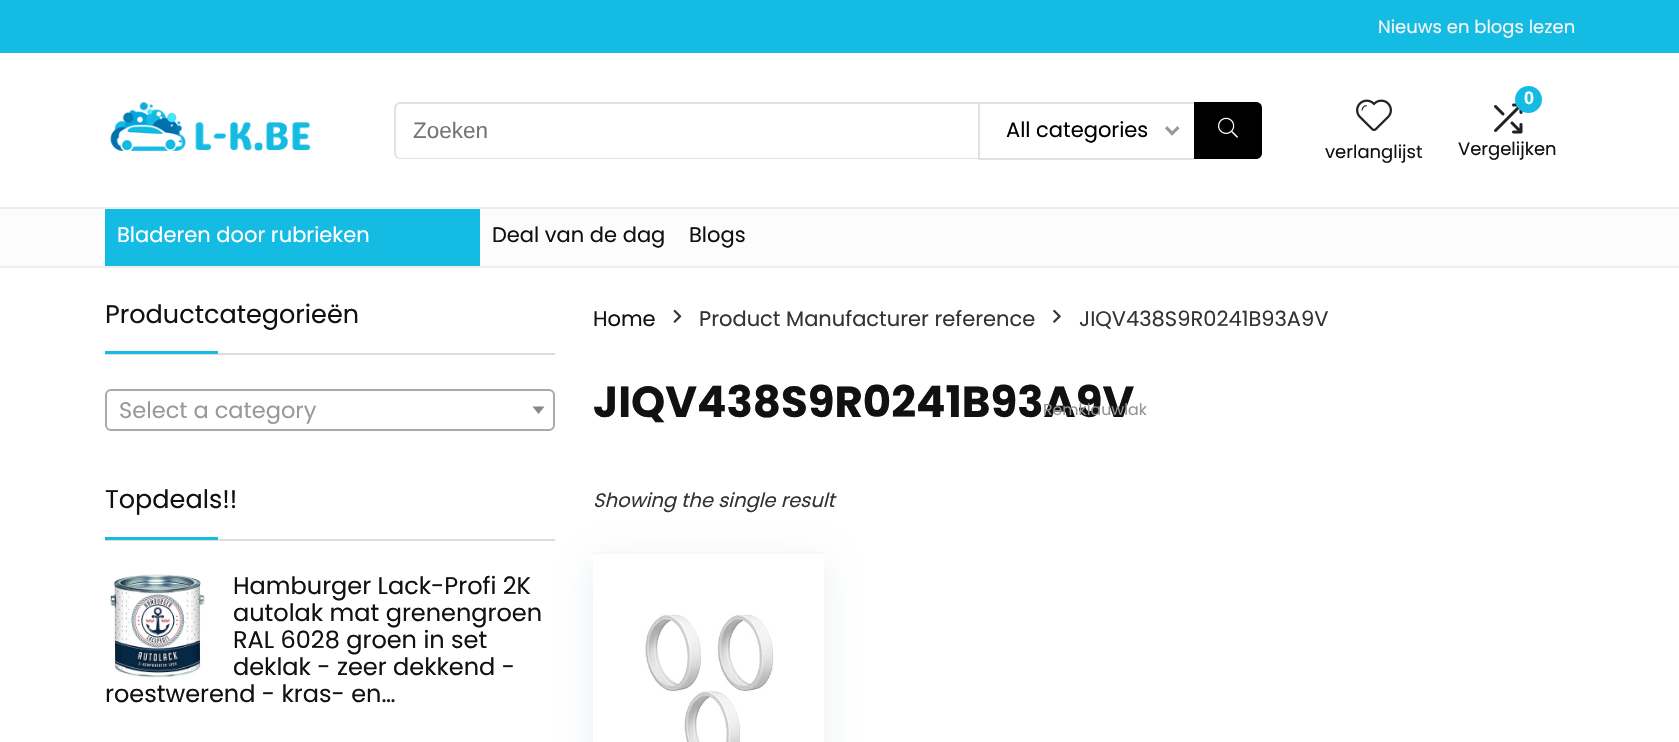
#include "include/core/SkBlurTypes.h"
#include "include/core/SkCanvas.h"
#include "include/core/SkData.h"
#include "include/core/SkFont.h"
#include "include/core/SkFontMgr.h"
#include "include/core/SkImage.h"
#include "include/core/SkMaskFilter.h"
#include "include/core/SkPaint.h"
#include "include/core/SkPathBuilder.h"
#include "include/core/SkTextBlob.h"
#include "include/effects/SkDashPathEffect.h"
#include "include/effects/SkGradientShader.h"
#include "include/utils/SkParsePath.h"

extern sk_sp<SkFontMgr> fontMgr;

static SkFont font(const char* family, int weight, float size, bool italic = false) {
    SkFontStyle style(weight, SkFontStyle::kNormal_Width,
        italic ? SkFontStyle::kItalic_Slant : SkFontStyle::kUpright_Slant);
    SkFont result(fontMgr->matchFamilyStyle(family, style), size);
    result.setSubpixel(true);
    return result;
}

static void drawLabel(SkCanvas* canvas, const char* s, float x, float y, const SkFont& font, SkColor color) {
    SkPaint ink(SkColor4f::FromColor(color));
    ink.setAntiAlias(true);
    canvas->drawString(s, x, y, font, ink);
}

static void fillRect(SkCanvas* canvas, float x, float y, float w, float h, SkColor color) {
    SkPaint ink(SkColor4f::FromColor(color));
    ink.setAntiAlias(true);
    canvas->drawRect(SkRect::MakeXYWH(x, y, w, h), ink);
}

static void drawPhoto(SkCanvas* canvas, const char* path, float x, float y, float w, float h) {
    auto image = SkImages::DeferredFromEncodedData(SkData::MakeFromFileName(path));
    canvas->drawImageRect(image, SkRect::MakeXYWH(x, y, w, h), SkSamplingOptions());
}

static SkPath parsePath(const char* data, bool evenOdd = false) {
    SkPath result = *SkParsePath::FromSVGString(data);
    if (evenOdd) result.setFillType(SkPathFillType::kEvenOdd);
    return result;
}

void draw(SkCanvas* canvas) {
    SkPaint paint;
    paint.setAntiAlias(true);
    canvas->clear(0xFFFFFFFF);
    fillRect(canvas, 0, 0, 1679, 53, 0xFF14BBE2);
    SkFont font1 = font("Poppins", 400, 18);
    drawLabel(canvas, "Nieuws en blogs lezen", 1378, 33, font1, 0xFFF4F4F4);
    drawPhoto(canvas, "assets/img1.png", 110, 102, 201, 50);
    paint.setColor(0xFFE1E1E1);
    canvas->drawPath(parsePath("M400 102H978V159H400C397 159 394 156 394 153V108C394 105 397 102 400 102ZM400 104H978V158H400C398 158 396 155 396 153V108C396 106 398 104 400 104Z", true), paint);
    SkFont font2 = font("Liberation Sans", 400, 22.5f);
    drawLabel(canvas, "Zoeken", 413, 138, font2, 0xFF757575);
    fillRect(canvas, 978, 102, 216, 2, 0xFFE1E1E1);
    fillRect(canvas, 978, 158, 216, 2, 0xFFE1E1E1);
    fillRect(canvas, 978, 102, 2, 57, 0xFFE1E1E1);
    SkFont font3 = font("Poppins", 400, 21);
    drawLabel(canvas, "All categories", 1006, 137, font3, 0xFF000000);
    paint.setColor(0xFF999999);
    canvas->drawPath(parsePath("M1177.5 126L1179.5 128.5L1172 135.5L1170 133.5Z"), paint);
    canvas->drawPath(parsePath("M1167 126L1174.5 133.5L1172 135.5L1165 128.5Z"), paint);
    SkFont font4 = font("Poppins", 700, 43.5f);
    drawLabel(canvas, "JIQV438S9R0241B93A9V", 593, 417, font4, 0xFF111111);
    SkFont font5 = font("Poppins", 400, 15.75f);
    drawLabel(canvas, "Remklauwlak", 1043, 415, font5, 0xFF939393);
    paint.setColor(0xFF000000);
    canvas->drawPath(parsePath("M1194 102H1256C1259.5 102 1262 104.5 1262 108V153C1262 156.5 1259.5 159 1256 159H1194Z"), paint);
    drawPhoto(canvas, "assets/img2.png", 1218, 117, 20, 21);
    drawPhoto(canvas, "assets/img3.png", 1356, 99, 36, 32);
    drawLabel(canvas, "verlanglijst", 1325, 158, font1, 0xFF111111);
    drawPhoto(canvas, "assets/img4.png", 1494, 103, 29, 31);
    paint.setColor(0xFF14BBE2);
    canvas->drawCircle(1528.5f, 99.5f, 13.5f, paint);
    SkFont font6 = font("Liberation Sans", 700, 18);
    drawLabel(canvas, "0", 1524, 104, font6, 0xFFFFFFFF);
    drawLabel(canvas, "Vergelijken", 1458, 155, font1, 0xFF111111);
    fillRect(canvas, 0, 209, 1679, 57, 0xFFFCFCFC);
    fillRect(canvas, 0, 207, 1679, 2, 0xFFEEEEEE);
    fillRect(canvas, 0, 266, 1679, 2, 0xFFEEEEEE);
    fillRect(canvas, 105, 209, 375, 57, 0xFF14BBE2);
    drawLabel(canvas, "Bladeren door rubrieken", 117, 242, font3, 0xFFFFFFFF);
    drawLabel(canvas, "Deal van de dag", 492, 242, font3, 0xFF111111);
    drawLabel(canvas, "Blogs", 689, 242, font3, 0xFF111111);
    fillRect(canvas, 105, 353, 450, 2, 0xFFDDDDDD);
    SkFont font7 = font("Poppins", 400, 25.5f);
    drawLabel(canvas, "Productcategorieën", 105, 323, font7, 0xFF111111);
    fillRect(canvas, 105, 351, 113, 3, 0xFF14BBE2);
    paint.setStroke(true);
    paint.setStrokeWidth(2);
    paint.setColor(0xFFAAAAAA);
    canvas->drawRoundRect(SkRect::MakeXYWH(106, 390, 448, 40), 5, 5, paint);
    SkFont font8 = font("Poppins", 400, 22.5f);
    drawLabel(canvas, "Select a category", 119, 418, font8, 0xFF999999);
    paint.setStroke(false);
    paint.setColor(0xFF888888);
    canvas->drawPath(parsePath("M532.5 406.5H544.5L538.5 414Z"), paint);
    fillRect(canvas, 105, 539, 450, 2, 0xFFDDDDDD);
    drawLabel(canvas, "Topdeals!!", 105, 508, font7, 0xFF111111);
    fillRect(canvas, 105, 537, 113, 3, 0xFF14BBE2);
    drawPhoto(canvas, "assets/img5.png", 110, 574, 96, 104);
    SkFont font9 = font("Poppins", 400, 24);
    drawLabel(canvas, "Hamburger Lack-Profi 2K", 233, 594, font9, 0xFF111111);
    drawLabel(canvas, "autolak mat grenengroen", 233, 621, font9, 0xFF111111);
    drawLabel(canvas, "RAL 6028 groen in set", 233, 648, font9, 0xFF111111);
    drawLabel(canvas, "deklak - zeer dekkend -", 233, 675, font9, 0xFF111111);
    drawLabel(canvas, "roestwerend - kras- en…", 105, 702, font9, 0xFF111111);
    drawLabel(canvas, "Home", 593, 326, font3, 0xFF111111);
    drawPhoto(canvas, "assets/img6.png", 673, 309, 9, 14);
    drawLabel(canvas, "Product Manufacturer reference", 699, 326, font3, 0xFF333333);
    drawPhoto(canvas, "assets/img7.png", 1053, 309, 8, 14);
    drawLabel(canvas, "JIQV438S9R0241B93A9V", 1079, 326, font3, 0xFF333333);
    SkFont font10 = font("Poppins", 400, 19.5f, true);
    drawLabel(canvas, "Showing the single result", 593, 507, font10, 0xFF333333);
    paint.setColor(0x59BCCFDB);
    paint.setMaskFilter(SkMaskFilter::MakeBlur(kNormal_SkBlurStyle, 17));
    canvas->drawRect(SkRect::MakeXYWH(593, 560, 231, 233), paint);
    paint.setMaskFilter(nullptr);
    fillRect(canvas, 593, 554, 231, 188, 0xFFFFFFFF);
    fillRect(canvas, 593, 552, 231, 2, 0xFFF8F8F8);
    drawPhoto(canvas, "assets/img8.png", 645, 614, 129, 128);
}
